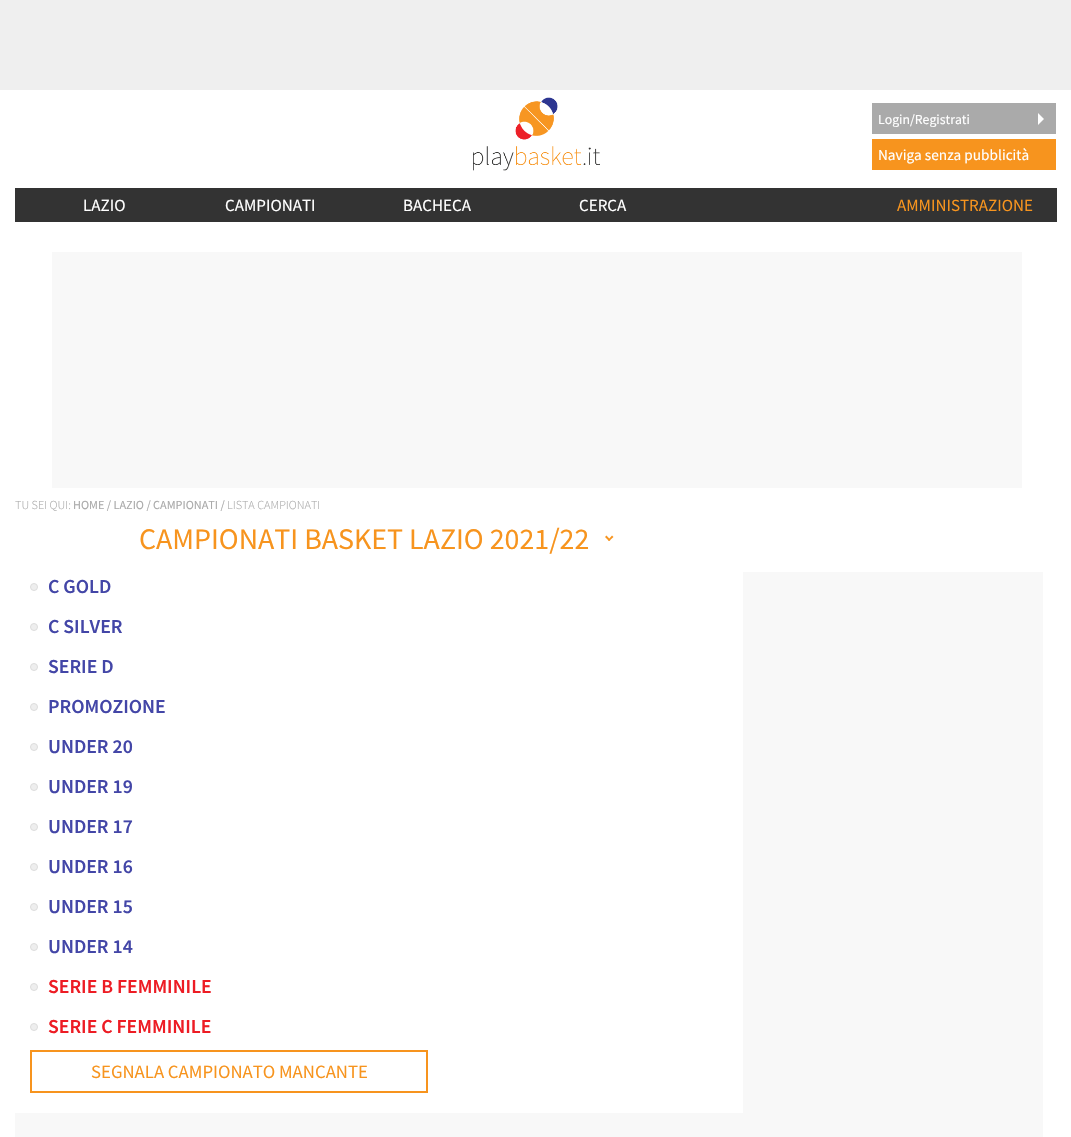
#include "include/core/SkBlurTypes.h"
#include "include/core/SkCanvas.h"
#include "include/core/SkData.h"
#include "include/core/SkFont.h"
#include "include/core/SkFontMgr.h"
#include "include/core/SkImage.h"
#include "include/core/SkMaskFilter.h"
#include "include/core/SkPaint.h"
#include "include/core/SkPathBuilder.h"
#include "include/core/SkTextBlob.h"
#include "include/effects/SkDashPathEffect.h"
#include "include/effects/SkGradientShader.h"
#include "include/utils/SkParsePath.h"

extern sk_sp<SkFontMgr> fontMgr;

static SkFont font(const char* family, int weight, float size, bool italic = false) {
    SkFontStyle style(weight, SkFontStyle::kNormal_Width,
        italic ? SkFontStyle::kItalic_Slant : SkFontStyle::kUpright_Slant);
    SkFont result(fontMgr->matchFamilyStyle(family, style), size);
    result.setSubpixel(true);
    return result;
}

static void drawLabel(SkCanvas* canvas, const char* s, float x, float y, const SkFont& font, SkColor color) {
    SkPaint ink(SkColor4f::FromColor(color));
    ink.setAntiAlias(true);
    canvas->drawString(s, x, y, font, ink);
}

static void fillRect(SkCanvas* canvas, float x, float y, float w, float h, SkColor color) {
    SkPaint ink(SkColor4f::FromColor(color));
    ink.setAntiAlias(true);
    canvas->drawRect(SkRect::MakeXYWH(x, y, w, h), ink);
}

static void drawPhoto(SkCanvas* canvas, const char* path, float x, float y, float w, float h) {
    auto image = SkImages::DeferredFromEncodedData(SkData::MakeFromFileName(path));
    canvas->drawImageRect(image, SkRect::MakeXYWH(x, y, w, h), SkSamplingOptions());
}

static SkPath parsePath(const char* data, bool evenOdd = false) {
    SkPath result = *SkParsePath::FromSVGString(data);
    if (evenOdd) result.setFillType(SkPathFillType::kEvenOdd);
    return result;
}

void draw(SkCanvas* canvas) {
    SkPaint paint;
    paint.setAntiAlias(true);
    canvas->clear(0xFFEFEFEF);
    fillRect(canvas, 0, 90, 1071, 1047, 0xFFFFFFFF);
    drawPhoto(canvas, "assets/img1.png", 473, 97, 127, 74);
    fillRect(canvas, 872, 103, 184, 31, 0xFFAAAAAA);
    SkFont font1 = font("Source Sans Pro", 400, 13.75f);
    drawLabel(canvas, "Login/Registrati", 878, 124, font1, 0xFFFFFFFF);
    paint.setColor(0xFFFFFFFF);
    canvas->drawPath(parsePath("M1038 125V113L1044 119Z"), paint);
    fillRect(canvas, 872, 139, 184, 31, 0xFFF7941E);
    SkFont font2 = font("Source Sans Pro", 400, 15.25f);
    drawLabel(canvas, "Naviga senza pubblicità", 878, 160, font2, 0xFFFFFFFF);
    fillRect(canvas, 15, 188, 1042, 34, 0xFF333333);
    SkFont font3 = font("Source Sans Pro", 400, 17);
    drawLabel(canvas, "LAZIO", 83, 211, font3, 0xFFFFFFFF);
    drawLabel(canvas, "CAMPIONATI", 225, 211, font3, 0xFFFFFFFF);
    drawLabel(canvas, "BACHECA", 403, 211, font3, 0xFFFFFFFF);
    drawLabel(canvas, "CERCA", 579, 211, font3, 0xFFFFFFFF);
    drawLabel(canvas, "AMMINISTRAZIONE", 897, 211, font3, 0xFFF7941E);
    fillRect(canvas, 52, 252, 970, 236, 0xFFF8F8F8);
    SkFont font4 = font("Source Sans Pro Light", 300, 12.2f);
    drawLabel(canvas, "TU SEI QUI:", 15, 509, font4, 0xFFAAAAAA);
    SkFont font5 = font("Source Sans Pro", 400, 12.2f);
    drawLabel(canvas, "HOME / LAZIO / CAMPIONATI /", 73, 509, font5, 0xFFAAAAAA);
    drawLabel(canvas, "LISTA CAMPIONATI", 227, 509, font4, 0xFFAAAAAA);
    SkFont font6 = font("Source Sans Pro", 400, 29.9f);
    drawLabel(canvas, "CAMPIONATI BASKET LAZIO 2021/22", 139, 549, font6, 0xFFF7941E);
    paint.setColor(0xFFF7941E);
    canvas->drawPath(parsePath("M612 535.5L613.5 537L609 541L608 540Z"), paint);
    canvas->drawPath(parsePath("M606.5 535.5L610.5 540L609 541L605 537Z"), paint);
    paint.setColor(0xFFEEEEEE);
    canvas->drawCircle(34, 587, 3.5f, paint);
    paint.setStroke(true);
    paint.setStrokeWidth(1);
    paint.setColor(0xFFDDDDDD);
    canvas->drawCircle(34, 587, 3.5f, paint);
    SkFont font7 = font("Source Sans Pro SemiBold", 600, 19.75f);
    drawLabel(canvas, "C GOLD", 48, 593, font7, 0xFF4346A7);
    paint.setStroke(false);
    paint.setColor(0xFFEEEEEE);
    canvas->drawCircle(34, 627, 3.5f, paint);
    paint.setStroke(true);
    paint.setColor(0xFFDDDDDD);
    canvas->drawCircle(34, 627, 3.5f, paint);
    drawLabel(canvas, "C SILVER", 48, 633, font7, 0xFF4346A7);
    paint.setStroke(false);
    paint.setColor(0xFFEEEEEE);
    canvas->drawCircle(34, 667, 3.5f, paint);
    paint.setStroke(true);
    paint.setColor(0xFFDDDDDD);
    canvas->drawCircle(34, 667, 3.5f, paint);
    drawLabel(canvas, "SERIE D", 48, 673, font7, 0xFF4346A7);
    paint.setStroke(false);
    paint.setColor(0xFFEEEEEE);
    canvas->drawCircle(34, 707, 3.5f, paint);
    paint.setStroke(true);
    paint.setColor(0xFFDDDDDD);
    canvas->drawCircle(34, 707, 3.5f, paint);
    drawLabel(canvas, "PROMOZIONE", 48, 713, font7, 0xFF4346A7);
    paint.setStroke(false);
    paint.setColor(0xFFEEEEEE);
    canvas->drawCircle(34, 747, 3.5f, paint);
    paint.setStroke(true);
    paint.setColor(0xFFDDDDDD);
    canvas->drawCircle(34, 747, 3.5f, paint);
    drawLabel(canvas, "UNDER 20", 48, 753, font7, 0xFF4346A7);
    paint.setStroke(false);
    paint.setColor(0xFFEEEEEE);
    canvas->drawCircle(34, 787, 3.5f, paint);
    paint.setStroke(true);
    paint.setColor(0xFFDDDDDD);
    canvas->drawCircle(34, 787, 3.5f, paint);
    drawLabel(canvas, "UNDER 19", 48, 793, font7, 0xFF4346A7);
    paint.setStroke(false);
    paint.setColor(0xFFEEEEEE);
    canvas->drawCircle(34, 827, 3.5f, paint);
    paint.setStroke(true);
    paint.setColor(0xFFDDDDDD);
    canvas->drawCircle(34, 827, 3.5f, paint);
    drawLabel(canvas, "UNDER 17", 48, 833, font7, 0xFF4346A7);
    paint.setStroke(false);
    paint.setColor(0xFFEEEEEE);
    canvas->drawCircle(34, 867, 3.5f, paint);
    paint.setStroke(true);
    paint.setColor(0xFFDDDDDD);
    canvas->drawCircle(34, 867, 3.5f, paint);
    drawLabel(canvas, "UNDER 16", 48, 873, font7, 0xFF4346A7);
    paint.setStroke(false);
    paint.setColor(0xFFEEEEEE);
    canvas->drawCircle(34, 907, 3.5f, paint);
    paint.setStroke(true);
    paint.setColor(0xFFDDDDDD);
    canvas->drawCircle(34, 907, 3.5f, paint);
    drawLabel(canvas, "UNDER 15", 48, 913, font7, 0xFF4346A7);
    paint.setStroke(false);
    paint.setColor(0xFFEEEEEE);
    canvas->drawCircle(34, 947, 3.5f, paint);
    paint.setStroke(true);
    paint.setColor(0xFFDDDDDD);
    canvas->drawCircle(34, 947, 3.5f, paint);
    drawLabel(canvas, "UNDER 14", 48, 953, font7, 0xFF4346A7);
    paint.setStroke(false);
    paint.setColor(0xFFEEEEEE);
    canvas->drawCircle(34, 987, 3.5f, paint);
    paint.setStroke(true);
    paint.setColor(0xFFDDDDDD);
    canvas->drawCircle(34, 987, 3.5f, paint);
    drawLabel(canvas, "SERIE B FEMMINILE", 48, 993, font7, 0xFFED1C24);
    paint.setStroke(false);
    paint.setColor(0xFFEEEEEE);
    canvas->drawCircle(34, 1027, 3.5f, paint);
    paint.setStroke(true);
    paint.setColor(0xFFDDDDDD);
    canvas->drawCircle(34, 1027, 3.5f, paint);
    drawLabel(canvas, "SERIE C FEMMINILE", 48, 1033, font7, 0xFFED1C24);
    paint.setStrokeWidth(2);
    paint.setColor(0xFFF7941E);
    canvas->drawRect(SkRect::MakeXYWH(31, 1051, 396, 41), paint);
    SkFont font8 = font("Source Sans Pro", 400, 18.75f);
    drawLabel(canvas, "SEGNALA CAMPIONATO MANCANTE", 91, 1078, font8, 0xFFF7941E);
    fillRect(canvas, 15, 1113, 728, 24, 0xFFF8F8F8);
    fillRect(canvas, 743, 572, 300, 565, 0xFFF8F8F8);
}
